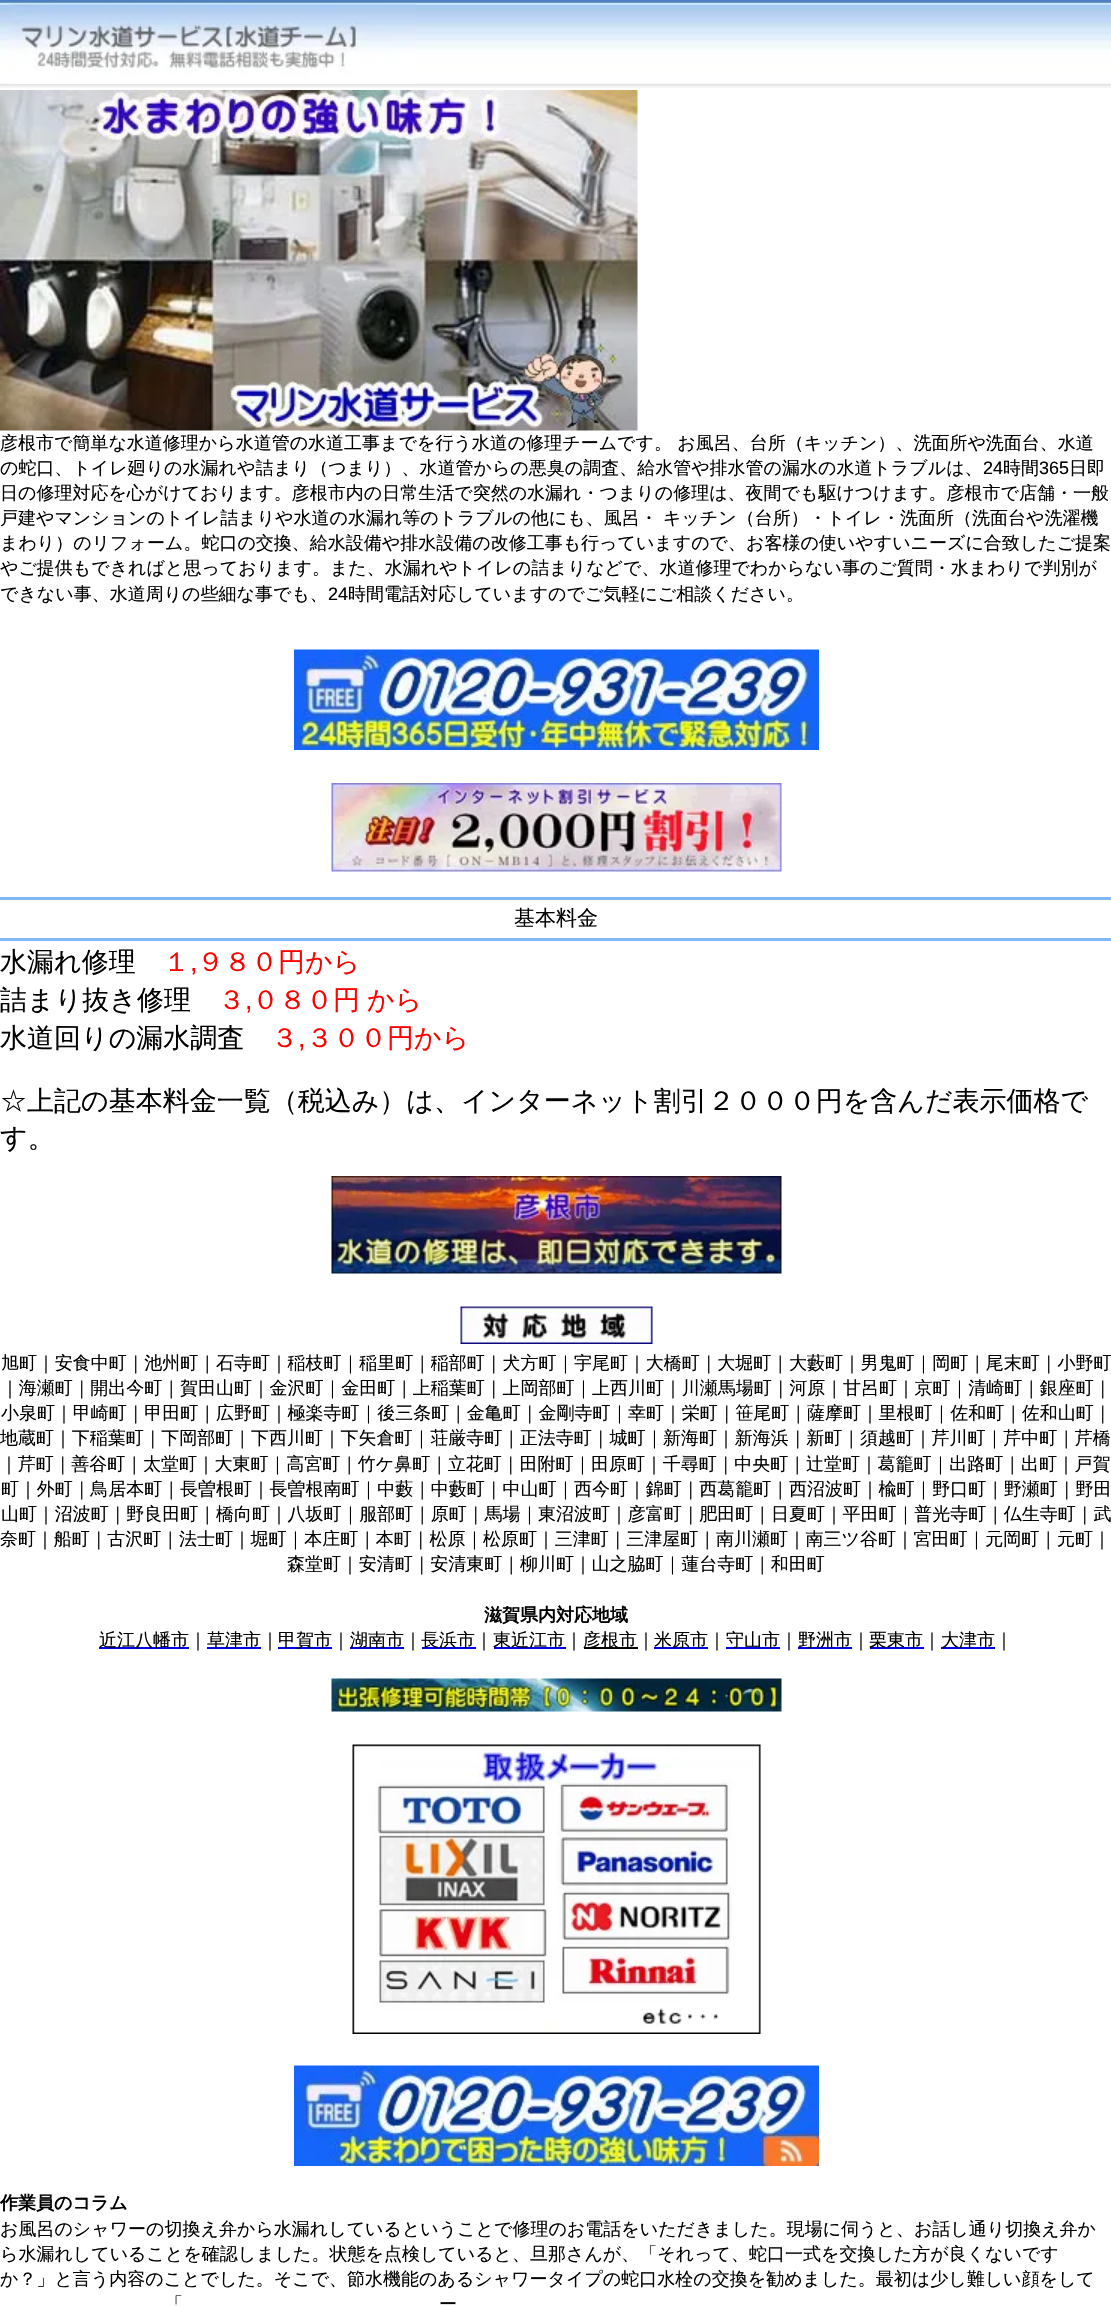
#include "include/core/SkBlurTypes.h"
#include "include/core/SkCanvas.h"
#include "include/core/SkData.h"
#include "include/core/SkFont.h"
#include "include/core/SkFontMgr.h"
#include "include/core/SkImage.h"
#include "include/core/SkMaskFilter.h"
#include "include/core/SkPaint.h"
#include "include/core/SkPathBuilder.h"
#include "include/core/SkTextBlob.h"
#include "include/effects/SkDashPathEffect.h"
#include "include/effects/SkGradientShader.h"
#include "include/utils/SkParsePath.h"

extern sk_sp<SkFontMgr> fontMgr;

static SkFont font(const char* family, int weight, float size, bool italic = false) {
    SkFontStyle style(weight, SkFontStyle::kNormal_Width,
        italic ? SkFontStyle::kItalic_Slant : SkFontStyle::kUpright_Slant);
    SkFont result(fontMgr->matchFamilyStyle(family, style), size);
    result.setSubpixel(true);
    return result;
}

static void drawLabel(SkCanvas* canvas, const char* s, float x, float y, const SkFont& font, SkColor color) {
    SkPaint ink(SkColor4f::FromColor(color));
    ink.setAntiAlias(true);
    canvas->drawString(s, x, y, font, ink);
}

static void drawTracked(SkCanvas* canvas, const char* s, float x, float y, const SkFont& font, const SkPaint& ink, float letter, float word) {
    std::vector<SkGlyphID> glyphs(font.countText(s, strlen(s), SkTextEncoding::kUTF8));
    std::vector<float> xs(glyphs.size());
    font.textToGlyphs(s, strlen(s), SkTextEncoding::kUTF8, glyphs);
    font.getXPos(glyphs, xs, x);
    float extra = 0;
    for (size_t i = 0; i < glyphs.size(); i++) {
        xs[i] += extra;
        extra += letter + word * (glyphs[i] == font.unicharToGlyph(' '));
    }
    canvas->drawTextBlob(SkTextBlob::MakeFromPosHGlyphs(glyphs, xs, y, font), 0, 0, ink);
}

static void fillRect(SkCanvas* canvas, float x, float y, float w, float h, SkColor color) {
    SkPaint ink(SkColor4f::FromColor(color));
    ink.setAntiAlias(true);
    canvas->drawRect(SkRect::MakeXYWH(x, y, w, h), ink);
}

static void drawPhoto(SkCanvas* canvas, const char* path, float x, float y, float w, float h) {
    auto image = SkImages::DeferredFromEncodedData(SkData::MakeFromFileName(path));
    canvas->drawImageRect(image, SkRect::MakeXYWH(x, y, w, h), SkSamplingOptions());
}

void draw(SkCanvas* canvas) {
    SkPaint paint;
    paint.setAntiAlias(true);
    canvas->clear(0xFFFFFFFF);
    drawPhoto(canvas, "assets/img1.png", 0, 0, 1111, 88);
    drawPhoto(canvas, "assets/img2.png", 9, 4, 407, 80);
    drawPhoto(canvas, "assets/img3.png", 0, 90, 638, 341);
    SkFont font1 = font("WenQuanYi Zen Hei", 500, 18);
    drawLabel(canvas, "彦根市で簡単な水道修理から水道管の水道工事までを行う水道の修理チームです。 お風呂、台所（キッチン）、洗面所や洗面台、水道", 0, 449, font1, 0xFF000000);
    drawLabel(canvas, "の蛇口、トイレ廻りの水漏れや詰まり（つまり）、水道管からの悪臭の調査、給水管や排水管の漏水の水道トラブルは、", 0, 474, font1, 0xFF000000);
    SkFont font2 = font("Liberation Sans", 400, 18);
    drawLabel(canvas, "24", 983, 474, font2, 0xFF000000);
    drawLabel(canvas, "時間", 1003, 474, font1, 0xFF000000);
    drawLabel(canvas, "365", 1039, 474, font2, 0xFF000000);
    drawLabel(canvas, "日即", 1069, 474, font1, 0xFF000000);
    drawLabel(canvas, "日の修理対応を心がけております。彦根市内の日常生活で突然の水漏れ・つまりの修理は、夜間でも駆けつけます。彦根市で店舗・一般", 0, 499, font1, 0xFF000000);
    drawLabel(canvas, "戸建やマンションのトイレ詰まりや水道の水漏れ等のトラブルの他にも、風呂・", 0, 524, font1, 0xFF000000);
    drawLabel(canvas, "キッチン（台所）・トイレ・洗面所（洗面台や洗濯機", 663, 524, font1, 0xFF000000);
    drawLabel(canvas, "まわり）のリフォーム。蛇口の交換、給水設備や排水設備の改修工事も行っていますので、お客様の使いやすいニーズに合致したご提案", 0, 549, font1, 0xFF000000);
    drawLabel(canvas, "やご提供もできればと思っております。また、水漏れやトイレの詰まりなどで、水道修理でわからない事のご質問・水まわりで判別が", 0, 574, font1, 0xFF000000);
    drawLabel(canvas, "できない事、水道周りの些細な事でも、", 0, 600, font1, 0xFF000000);
    drawLabel(canvas, "24", 328, 600, font2, 0xFF000000);
    drawLabel(canvas, "時間電話対応していますのでご気軽にご相談ください。", 348, 600, font1, 0xFF000000);
    drawPhoto(canvas, "assets/img4.png", 294, 649, 525, 101);
    drawPhoto(canvas, "assets/img5.png", 331, 783, 451, 89);
    fillRect(canvas, 0, 897, 1111, 3, 0xFF81B9F6);
    fillRect(canvas, 0, 938, 1111, 3, 0xFF81B9F6);
    SkFont font3 = font("WenQuanYi Zen Hei", 500, 21);
    drawLabel(canvas, "基本料金", 514, 925, font3, 0xFF000000);
    SkFont font4 = font("WenQuanYi Zen Hei", 500, 27);
    drawLabel(canvas, "水漏れ修理", 0, 971, font4, 0xFF000000);
    drawLabel(canvas, "１", 163, 971, font4, 0xFFFF0000);
    SkFont font5 = font("Liberation Sans", 400, 27);
    drawLabel(canvas, ",", 190, 971, font5, 0xFFFF0000);
    drawLabel(canvas, "９８０円から", 197, 971, font4, 0xFFFF0000);
    drawLabel(canvas, "詰まり抜き修理", 0, 1009, font4, 0xFF000000);
    drawLabel(canvas, "３", 218, 1009, font4, 0xFFFF0000);
    drawLabel(canvas, ",", 245, 1009, font5, 0xFFFF0000);
    paint.setColor(0xFFFF0000);
    drawTracked(canvas, "０８０円 から", 252, 1009, font4, paint, 0, -1);
    drawLabel(canvas, "水道回りの漏水調査", 0, 1047, font4, 0xFF000000);
    drawLabel(canvas, "３", 271, 1047, font4, 0xFFFF0000);
    drawLabel(canvas, ",", 298, 1047, font5, 0xFFFF0000);
    drawLabel(canvas, "３００円から", 306, 1047, font4, 0xFFFF0000);
    drawLabel(canvas, "☆上記の基本料金一覧（税込み）は、インターネット割引２０００円を含んだ表示価格で", 0, 1110, font4, 0xFF000000);
    drawLabel(canvas, "す。", 0, 1147, font4, 0xFF000000);
    drawPhoto(canvas, "assets/img6.png", 331, 1176, 451, 98);
    drawPhoto(canvas, "assets/img7.png", 460, 1306, 193, 38);
    drawLabel(canvas, "旭町｜安食中町｜池州町｜石寺町｜稲枝町｜稲里町｜稲部町｜犬方町｜宇尾町｜大橋町｜大堀町｜大藪町｜男鬼町｜岡町｜尾末町｜小野町", 1, 1369, font1, 0xFF000000);
    drawLabel(canvas, "｜海瀬町｜開出今町｜賀田山町｜金沢町｜金田町｜上稲葉町｜上岡部町｜上西川町｜川瀬馬場町｜河原｜甘呂町｜京町｜清崎町｜銀座町｜", 1, 1394, font1, 0xFF000000);
    drawLabel(canvas, "小泉町｜甲崎町｜甲田町｜広野町｜極楽寺町｜後三条町｜金亀町｜金剛寺町｜幸町｜栄町｜笹尾町｜薩摩町｜里根町｜佐和町｜佐和山町｜", 1, 1419, font1, 0xFF000000);
    drawLabel(canvas, "地蔵町｜下稲葉町｜下岡部町｜下西川町｜下矢倉町｜荘厳寺町｜正法寺町｜城町｜新海町｜新海浜｜新町｜須越町｜芹川町｜芹中町｜芹橋", 0, 1444, font1, 0xFF000000);
    drawLabel(canvas, "｜芹町｜善谷町｜太堂町｜大東町｜高宮町｜竹ケ鼻町｜立花町｜田附町｜田原町｜千尋町｜中央町｜辻堂町｜葛籠町｜出路町｜出町｜戸賀", 0, 1470, font1, 0xFF000000);
    drawLabel(canvas, "町｜外町｜鳥居本町｜長曽根町｜長曽根南町｜中藪｜中藪町｜中山町｜西今町｜錦町｜西葛籠町｜西沼波町｜楡町｜野口町｜野瀬町｜野田", 1, 1495, font1, 0xFF000000);
    drawLabel(canvas, "山町｜沼波町｜野良田町｜橋向町｜八坂町｜服部町｜原町｜馬場｜東沼波町｜彦富町｜肥田町｜日夏町｜平田町｜普光寺町｜仏生寺町｜武", 1, 1520, font1, 0xFF000000);
    drawLabel(canvas, "奈町｜船町｜古沢町｜法士町｜堀町｜本庄町｜本町｜松原｜松原町｜三津町｜三津屋町｜南川瀬町｜南三ツ谷町｜宮田町｜元岡町｜元町｜", 0, 1545, font1, 0xFF000000);
    drawLabel(canvas, "森堂町｜安清町｜安清東町｜柳川町｜山之脇町｜蓮台寺町｜和田町", 287, 1570, font1, 0xFF000000);
    SkFont font6 = font("WenQuanYi Zen Hei", 700, 18);
    drawLabel(canvas, "滋賀県内対応地域", 484, 1621, font6, 0xFF000000);
    fillRect(canvas, 99, 1647, 90, 2, 0xFF0000EE);
    drawLabel(canvas, "近江八幡市｜", 99, 1646, font1, 0xFF000000);
    fillRect(canvas, 207, 1647, 54, 2, 0xFF0000EE);
    drawLabel(canvas, "草津市｜", 207, 1646, font1, 0xFF000000);
    fillRect(canvas, 278, 1647, 54, 2, 0xFF0000EE);
    drawLabel(canvas, "甲賀市｜", 278, 1646, font1, 0xFF000000);
    fillRect(canvas, 350, 1647, 54, 2, 0xFF0000EE);
    drawLabel(canvas, "湖南市｜", 350, 1646, font1, 0xFF000000);
    fillRect(canvas, 422, 1647, 54, 2, 0xFF0000EE);
    drawLabel(canvas, "長浜市｜", 421, 1646, font1, 0xFF000000);
    fillRect(canvas, 494, 1647, 72, 2, 0xFF0000EE);
    drawLabel(canvas, "東近江市｜", 493, 1646, font1, 0xFF000000);
    fillRect(canvas, 584, 1647, 54, 2, 0xFF000000);
    drawLabel(canvas, "彦根市｜", 583, 1646, font1, 0xFF000000);
    fillRect(canvas, 654, 1647, 54, 2, 0xFF0000EE);
    drawLabel(canvas, "米原市｜", 654, 1646, font1, 0xFF000000);
    fillRect(canvas, 726, 1647, 54, 2, 0xFF0000EE);
    drawLabel(canvas, "守山市｜", 726, 1646, font1, 0xFF000000);
    fillRect(canvas, 798, 1647, 54, 2, 0xFF0000EE);
    drawLabel(canvas, "野洲市｜", 798, 1646, font1, 0xFF000000);
    fillRect(canvas, 870, 1647, 54, 2, 0xFF0000EE);
    drawLabel(canvas, "栗東市｜", 869, 1646, font1, 0xFF000000);
    fillRect(canvas, 941, 1647, 54, 2, 0xFF0000EE);
    drawLabel(canvas, "大津市｜", 941, 1646, font1, 0xFF000000);
    drawPhoto(canvas, "assets/img8.png", 331, 1678, 451, 34);
    drawPhoto(canvas, "assets/img9.png", 352, 1744, 409, 290);
    drawPhoto(canvas, "assets/img10.png", 294, 2065, 525, 101);
    drawLabel(canvas, "作業員のコラム", 0, 2209, font6, 0xFF000000);
    drawLabel(canvas, "お風呂のシャワーの切換え弁から水漏れしているということで修理のお電話をいただきました。現場に伺うと、お話し通り切換え弁か", 0, 2235, font1, 0xFF000000);
    drawLabel(canvas, "ら水漏れしていることを確認しました。状態を点検していると、旦那さんが、「それって、蛇口一式を交換した方が良くないです", 0, 2260, font1, 0xFF000000);
    drawLabel(canvas, "か？」と言う内容のことでした。そこで、節水機能のあるシャワータイプの蛇口水栓の交換を勧めました。最初は少し難しい顔をして", 0, 2285, font1, 0xFF000000);
    drawLabel(canvas, "「", 165, 2310, font1, 0xFF000000);
    drawLabel(canvas, "ー", 439, 2310, font1, 0xFF000000);
}
